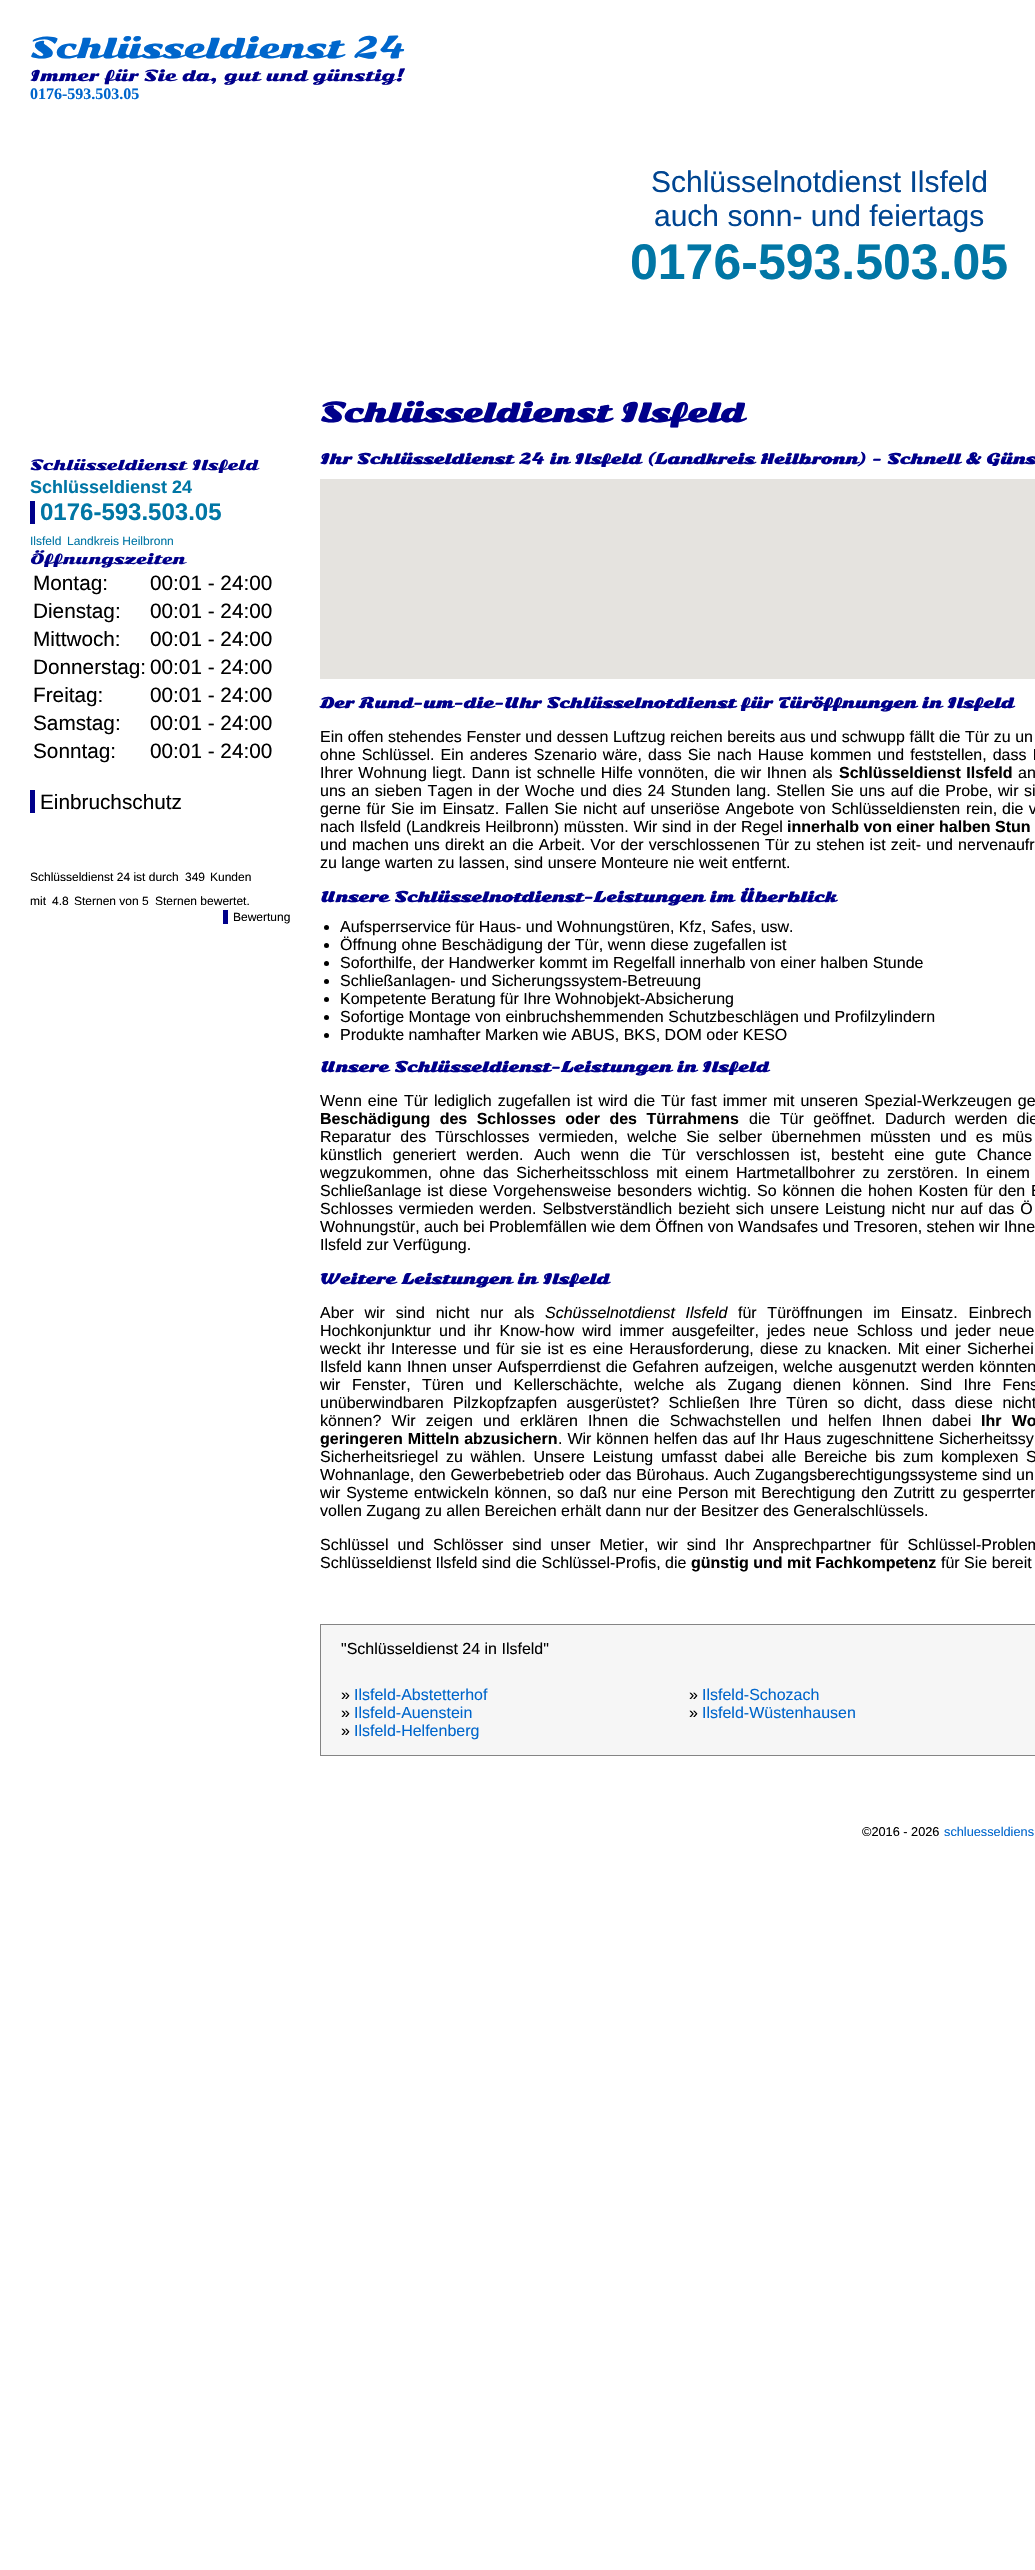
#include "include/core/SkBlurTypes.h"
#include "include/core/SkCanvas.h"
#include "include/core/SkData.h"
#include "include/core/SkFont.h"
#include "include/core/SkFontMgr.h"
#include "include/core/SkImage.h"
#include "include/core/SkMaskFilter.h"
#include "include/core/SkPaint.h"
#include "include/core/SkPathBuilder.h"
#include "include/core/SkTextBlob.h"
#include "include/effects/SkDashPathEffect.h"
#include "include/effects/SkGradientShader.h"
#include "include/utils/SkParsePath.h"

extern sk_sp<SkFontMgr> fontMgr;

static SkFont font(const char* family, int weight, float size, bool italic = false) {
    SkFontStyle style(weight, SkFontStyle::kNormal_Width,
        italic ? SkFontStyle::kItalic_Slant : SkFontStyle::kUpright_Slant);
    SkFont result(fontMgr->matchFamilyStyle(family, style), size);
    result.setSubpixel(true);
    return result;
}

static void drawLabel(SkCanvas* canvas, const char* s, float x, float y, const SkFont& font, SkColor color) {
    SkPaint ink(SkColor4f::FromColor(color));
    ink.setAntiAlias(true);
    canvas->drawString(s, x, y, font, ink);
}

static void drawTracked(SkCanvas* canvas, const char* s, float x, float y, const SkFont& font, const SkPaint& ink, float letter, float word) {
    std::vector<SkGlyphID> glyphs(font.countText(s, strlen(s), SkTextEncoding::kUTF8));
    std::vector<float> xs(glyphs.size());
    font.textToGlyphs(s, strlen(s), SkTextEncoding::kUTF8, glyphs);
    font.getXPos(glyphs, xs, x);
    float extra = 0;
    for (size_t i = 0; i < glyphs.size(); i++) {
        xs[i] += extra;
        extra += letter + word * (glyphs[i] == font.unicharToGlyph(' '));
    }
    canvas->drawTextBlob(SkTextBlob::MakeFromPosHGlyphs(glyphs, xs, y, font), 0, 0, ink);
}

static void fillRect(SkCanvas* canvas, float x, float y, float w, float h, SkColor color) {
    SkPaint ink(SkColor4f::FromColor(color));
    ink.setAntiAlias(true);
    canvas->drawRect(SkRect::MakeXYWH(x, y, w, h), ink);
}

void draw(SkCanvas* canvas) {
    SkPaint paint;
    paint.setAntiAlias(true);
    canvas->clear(0xFFFFFFFF);
    SkFont font1 = font("Sonsie One", 400, 28);
    drawLabel(canvas, "Schlüsseldienst 24", 30, 58, font1, 0xFF0066CC);
    SkFont font2 = font("Sonsie One", 400, 15);
    drawLabel(canvas, "Immer für Sie da, gut und günstig!", 30, 81, font2, 0xFF00008B);
    SkFont font3 = font("Liberation Serif", 700, 16);
    drawLabel(canvas, "0176-593.503.05", 30, 99, font3, 0xFF0066CC);
    SkFont font4 = font("Liberation Sans", 400, 30);
    drawLabel(canvas, "Schlüsselnotdienst Ilsfeld", 651, 192, font4, 0xFF004591);
    drawLabel(canvas, "auch sonn- und feiertags", 654, 226, font4, 0xFF004591);
    SkFont font5 = font("Liberation Sans", 700, 50);
    drawLabel(canvas, "0176-593.503.05", 630, 279, font5, 0xFF0176A5);
    SkFont font6 = font("Sonsie One", 400, 14);
    drawLabel(canvas, "Schlüsseldienst Ilsfeld", 30, 470, font6, 0xFF00008B);
    SkFont font7 = font("Liberation Sans", 700, 18);
    drawLabel(canvas, "Schlüsseldienst 24", 30, 493, font7, 0xFF0176A5);
    SkFont font8 = font("Liberation Sans", 700, 24);
    drawLabel(canvas, "0176-593.503.05", 40, 520, font8, 0xFF0176A5);
    fillRect(canvas, 30, 501, 5, 23, 0xFF00008B);
    SkFont font9 = font("Liberation Sans", 400, 12);
    drawLabel(canvas, "Ilsfeld", 30, 545, font9, 0xFF0176A5);
    drawLabel(canvas, "Landkreis Heilbronn", 67, 545, font9, 0xFF0176A5);
    drawLabel(canvas, "Öffnungszeiten", 30, 564, font6, 0xFF00008B);
    SkFont font10 = font("Liberation Sans", 400, 20.75f);
    drawLabel(canvas, "Montag:", 33, 590, font10, 0xFF000000);
    drawLabel(canvas, "00:01 - 24:00", 150, 590, font10, 0xFF000000);
    drawLabel(canvas, "Dienstag:", 33, 618, font10, 0xFF000000);
    drawLabel(canvas, "00:01 - 24:00", 150, 618, font10, 0xFF000000);
    drawLabel(canvas, "Mittwoch:", 33, 646, font10, 0xFF000000);
    drawLabel(canvas, "00:01 - 24:00", 150, 646, font10, 0xFF000000);
    drawLabel(canvas, "Donnerstag:", 33, 674, font10, 0xFF000000);
    drawLabel(canvas, "00:01 - 24:00", 150, 674, font10, 0xFF000000);
    drawLabel(canvas, "Freitag:", 33, 702, font10, 0xFF000000);
    drawLabel(canvas, "00:01 - 24:00", 150, 702, font10, 0xFF000000);
    drawLabel(canvas, "Samstag:", 33, 730, font10, 0xFF000000);
    drawLabel(canvas, "00:01 - 24:00", 150, 730, font10, 0xFF000000);
    drawLabel(canvas, "Sonntag:", 33, 758, font10, 0xFF000000);
    drawLabel(canvas, "00:01 - 24:00", 150, 758, font10, 0xFF000000);
    drawLabel(canvas, "Einbruchschutz", 40, 809, font10, 0xFF000000);
    fillRect(canvas, 30, 790, 5, 23, 0xFF00008B);
    drawLabel(canvas, "Schlüsseldienst 24 ist durch", 30, 881, font9, 0xFF000000);
    drawLabel(canvas, "349", 185, 881, font9, 0xFF000000);
    drawLabel(canvas, "Kunden", 210, 881, font9, 0xFF000000);
    drawLabel(canvas, "mit", 30, 905, font9, 0xFF000000);
    drawLabel(canvas, "4.8", 52, 905, font9, 0xFF000000);
    drawLabel(canvas, "Sternen von 5", 74, 905, font9, 0xFF000000);
    drawLabel(canvas, "Sternen bewertet.", 155, 905, font9, 0xFF000000);
    drawLabel(canvas, "Bewertung", 233, 921, font9, 0xFF000000);
    fillRect(canvas, 223, 910, 5, 14, 0xFF00008B);
    SkFont font11 = font("Sonsie One", 700, 26);
    drawLabel(canvas, "Schlüsseldienst Ilsfeld", 320, 422, font11, 0xFF00008B);
    SkFont font12 = font("Sonsie One", 700, 14);
    drawLabel(canvas, "Ihr Schlüsseldienst 24 in Ilsfeld (Landkreis Heilbronn) - Schnell & Güns", 320, 464, font12, 0xFF00008B);
    fillRect(canvas, 320, 479, 715, 200, 0xFFE5E3DF);
    drawLabel(canvas, "Der Rund-um-die-Uhr Schlüsselnotdienst für Türöffnungen in Ilsfeld", 320, 708, font12, 0xFF00008B);
    SkFont font13 = font("Liberation Sans", 400, 16);
    paint.setColor(0xFF000000);
    drawTracked(canvas, "Ein offen stehendes Fenster und dessen Luftzug reichen bereits aus und schwupp fällt die Tür zu un", 320, 742, font13, paint, 0, 0.2f);
    drawTracked(canvas, "ohne Schlüssel. Ein anderes Szenario wäre, dass Sie nach Hause kommen und feststellen, dass I", 320, 760, font13, paint, 0, 1.6f);
    drawTracked(canvas, "Ihrer Wohnung liegt. Dann ist schnelle Hilfe vonnöten, die wir Ihnen als", 320, 778, font13, paint, 0, 1);
    SkFont font14 = font("Liberation Sans", 700, 16);
    drawTracked(canvas, "Schlüsseldienst Ilsfeld", 839, 778, font14, paint, 0, 1);
    drawTracked(canvas, "an", 1018, 778, font13, paint, 0, 1);
    drawTracked(canvas, "uns an sieben Tagen in der Woche und dies 24 Stunden lang. Stellen Sie uns auf die Probe, wir si", 320, 796, font13, paint, 0, 1.1f);
    drawTracked(canvas, "gerne für Sie im Einsatz. Fallen Sie nicht auf unseriöse Angebote von Schlüsseldiensten rein,", 320, 814, font13, paint, 0, 1.25f);
    drawTracked(canvas, "die v", 1002, 814, font13, paint, 0, 1);
    drawTracked(canvas, "nach Ilsfeld (Landkreis Heilbronn) müssten. Wir sind in der Regel", 320, 832, font13, paint, 0, 0.25f);
    drawLabel(canvas, "innerhalb von einer halben Stun", 787, 832, font14, 0xFF000000);
    drawTracked(canvas, "und machen uns direkt an die Arbeit. Vor der verschlossenen Tür zu stehen ist zeit- und nervenaufr", 320, 850, font13, paint, 0, 0.75f);
    drawLabel(canvas, "zu lange warten zu lassen, sind unsere Monteure nie weit entfernt.", 320, 868, font13, 0xFF000000);
    drawLabel(canvas, "Unsere Schlüsselnotdienst-Leistungen im Überblick", 320, 902, font12, 0xFF00008B);
    canvas->drawCircle(326.5f, 927.5f, 2.5f, paint);
    drawLabel(canvas, "Aufsperrservice für Haus- und Wohnungstüren, Kfz, Safes, usw.", 340, 932, font13, 0xFF000000);
    canvas->drawCircle(326.5f, 945.5f, 2.5f, paint);
    drawLabel(canvas, "Öffnung ohne Beschädigung der Tür, wenn diese zugefallen ist", 340, 950, font13, 0xFF000000);
    canvas->drawCircle(326.5f, 963.5f, 2.5f, paint);
    drawLabel(canvas, "Soforthilfe, der Handwerker kommt im Regelfall innerhalb von einer halben Stunde", 340, 968, font13, 0xFF000000);
    canvas->drawCircle(326.5f, 981.5f, 2.5f, paint);
    drawLabel(canvas, "Schließanlagen- und Sicherungssystem-Betreuung", 340, 986, font13, 0xFF000000);
    canvas->drawCircle(326.5f, 999.5f, 2.5f, paint);
    drawLabel(canvas, "Kompetente Beratung für Ihre Wohnobjekt-Absicherung", 340, 1004, font13, 0xFF000000);
    canvas->drawCircle(326.5f, 1017.5f, 2.5f, paint);
    drawLabel(canvas, "Sofortige Montage von einbruchshemmenden Schutzbeschlägen und Profilzylindern", 340, 1022, font13, 0xFF000000);
    canvas->drawCircle(326.5f, 1035.5f, 2.5f, paint);
    drawLabel(canvas, "Produkte namhafter Marken wie ABUS, BKS, DOM oder KESO", 340, 1040, font13, 0xFF000000);
    drawLabel(canvas, "Unsere Schlüsseldienst-Leistungen in Ilsfeld", 320, 1072, font12, 0xFF00008B);
    drawTracked(canvas, "Wenn eine Tür lediglich zugefallen ist wird die Tür fast immer mit unseren Spezial-Werkzeugen ge", 320, 1106, font13, paint, 0, 1.5f);
    drawTracked(canvas, "Beschädigung des Schlosses oder des Türrahmens", 320, 1124, font14, paint, 0, 5);
    drawTracked(canvas, "die Tür geöffnet. Dadurch werden die", 749, 1124, font13, paint, 0, 5);
    drawTracked(canvas, "Reparatur des Türschlosses vermieden, welche Sie selber übernehmen müssten und es müs", 320, 1142, font13, paint, 0, 4.75f);
    drawTracked(canvas, "künstlich generiert werden. Auch wenn die Tür verschlossen ist, besteht eine gute Chance", 320, 1160, font13, paint, 0, 6.1f);
    drawTracked(canvas, "wegzukommen, ohne", 320, 1178, font13, paint, 0, 3);
    drawTracked(canvas, "das Sicherheitsschloss mit einem Hartmetallbohrer zu zerstören. In einem", 483, 1178, font13, paint, 0, 3);
    drawTracked(canvas, "Schließanlage ist diese Vorgehensweise besonders wichtig. So können die hohen Kosten für den E", 320, 1196, font13, paint, 0, 1.4f);
    drawTracked(canvas, "Schlosses vermieden werden. Selbstverständlich bezieht sich unsere Leistung nicht nur auf das Ö", 320, 1214, font13, paint, 0, 1.5f);
    drawLabel(canvas, "Wohnungstür, auch bei Problemfällen wie dem Öffnen von Wandsafes und Tresoren, stehen wir Ihne", 320, 1232, font13, 0xFF000000);
    drawLabel(canvas, "Ilsfeld zur Verfügung.", 320, 1250, font13, 0xFF000000);
    drawLabel(canvas, "Weitere Leistungen in Ilsfeld", 320, 1284, font12, 0xFF00008B);
    drawTracked(canvas, "Aber wir sind nicht nur als", 320, 1318, font13, paint, 0, 6.25f);
    SkFont font15 = font("Liberation Sans", 400, 16, true);
    drawTracked(canvas, "Schüsselnotdienst Ilsfeld", 545, 1318, font15, paint, 0, 6.25f);
    drawTracked(canvas, "für Türöffnungen im Einsatz. Einbrech", 738, 1318, font13, paint, 0, 6.25f);
    drawTracked(canvas, "Hochkonjunktur und ihr Know-how wird immer ausgefeilter, jedes neue Schloss und jeder neue", 320, 1336, font13, paint, 0, 3.5f);
    drawTracked(canvas, "weckt ihr Interesse und für sie ist es eine Herausforderung, diese zu knacken. Mit einer Sicherhei", 320, 1354, font13, paint, 0, 1.75f);
    drawTracked(canvas, "Ilsfeld kann Ihnen unser Aufsperrdienst die Gefahren aufzeigen, welche ausgenutzt werden könnten", 320, 1372, font13, paint, 0, 0.75f);
    drawTracked(canvas, "wir Fenster, Türen und Kellerschächte, welche als Zugang dienen können.", 320, 1390, font13, paint, 0, 7);
    drawTracked(canvas, "Sind Ihre Fens", 920, 1390, font13, paint, 0, 7);
    drawTracked(canvas, "unüberwindbaren Pilzkopfzapfen ausgerüstet? Schließen Ihre Türen so dicht, dass diese nicht", 320, 1408, font13, paint, 0, 5);
    drawTracked(canvas, "können? Wir zeigen und erklären Ihnen die Schwachstellen und helfen Ihnen dabei", 320, 1426, font13, paint, 0, 5.75f);
    drawTracked(canvas, "Ihr Wo", 981, 1426, font14, paint, 0, 5.75f);
    drawTracked(canvas, "geringeren Mitteln abzusichern", 320, 1444, font14, paint, 0, 0.5f);
    drawTracked(canvas, ". Wir können helfen das auf Ihr Haus zugeschnittene Sicherheitssy", 558, 1444, font13, paint, 0, 0.5f);
    drawTracked(canvas, "Sicherheitsriegel zu wählen. Unsere Leistung umfasst dabei alle Bereiche bis zum komplexen S", 320, 1462, font13, paint, 0, 3.25f);
    drawTracked(canvas, "Wohnanlage, den Gewerbebetrieb oder das Bürohaus. Auch Zugangsberechtigungssysteme sind un", 320, 1480, font13, paint, 0, 0.25f);
    drawTracked(canvas, "wir Systeme entwickeln können, so daß nur eine Person mit Berechtigung den Zutritt zu gesperrten", 320, 1498, font13, paint, 0, 1.25f);
    drawLabel(canvas, "vollen Zugang zu allen Bereichen erhält dann nur der Besitzer des Generalschlüssels.", 320, 1516, font13, 0xFF000000);
    drawTracked(canvas, "Schlüssel und Schlösser sind unser Metier, wir sind Ihr Ansprechpartner für Schlüssel-Problem", 320, 1550, font13, paint, 0, 4.5f);
    drawLabel(canvas, "Schlüsseldienst Ilsfeld sind die Schlüssel-Profis, die", 320, 1568, font13, 0xFF000000);
    drawLabel(canvas, "günstig und mit Fachkompetenz", 691, 1568, font14, 0xFF000000);
    drawLabel(canvas, "für Sie bereit", 941, 1568, font13, 0xFF000000);
    paint.setColor(0xFFF6F6F6);
    canvas->drawRect(SkRect::MakeXYWH(320.5f, 1624.5f, 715, 131), paint);
    paint.setStroke(true);
    paint.setStrokeWidth(1);
    paint.setColor(0xFF848484);
    canvas->drawRect(SkRect::MakeXYWH(320.5f, 1624.5f, 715, 131), paint);
    drawLabel(canvas, "\"Schlüsseldienst 24 in Ilsfeld\"", 341, 1654, font13, 0xFF000000);
    drawLabel(canvas, "»", 341, 1700, font13, 0xFF000000);
    drawLabel(canvas, "Ilsfeld-Abstetterhof", 354, 1700, font13, 0xFF0066CC);
    drawLabel(canvas, "»", 341, 1718, font13, 0xFF000000);
    drawLabel(canvas, "Ilsfeld-Auenstein", 354, 1718, font13, 0xFF0066CC);
    drawLabel(canvas, "»", 341, 1736, font13, 0xFF000000);
    drawLabel(canvas, "Ilsfeld-Helfenberg", 354, 1736, font13, 0xFF0066CC);
    drawLabel(canvas, "»", 689, 1700, font13, 0xFF000000);
    drawLabel(canvas, "Ilsfeld-Schozach", 702, 1700, font13, 0xFF0066CC);
    drawLabel(canvas, "»", 689, 1718, font13, 0xFF000000);
    drawLabel(canvas, "Ilsfeld-Wüstenhausen", 702, 1718, font13, 0xFF0066CC);
    SkFont font16 = font("Liberation Sans", 400, 12.75f);
    drawLabel(canvas, "©2016 - 2026", 862, 1836, font16, 0xFF000000);
    drawLabel(canvas, "schluesseldiens", 944, 1836, font16, 0xFF0066CC);
}
